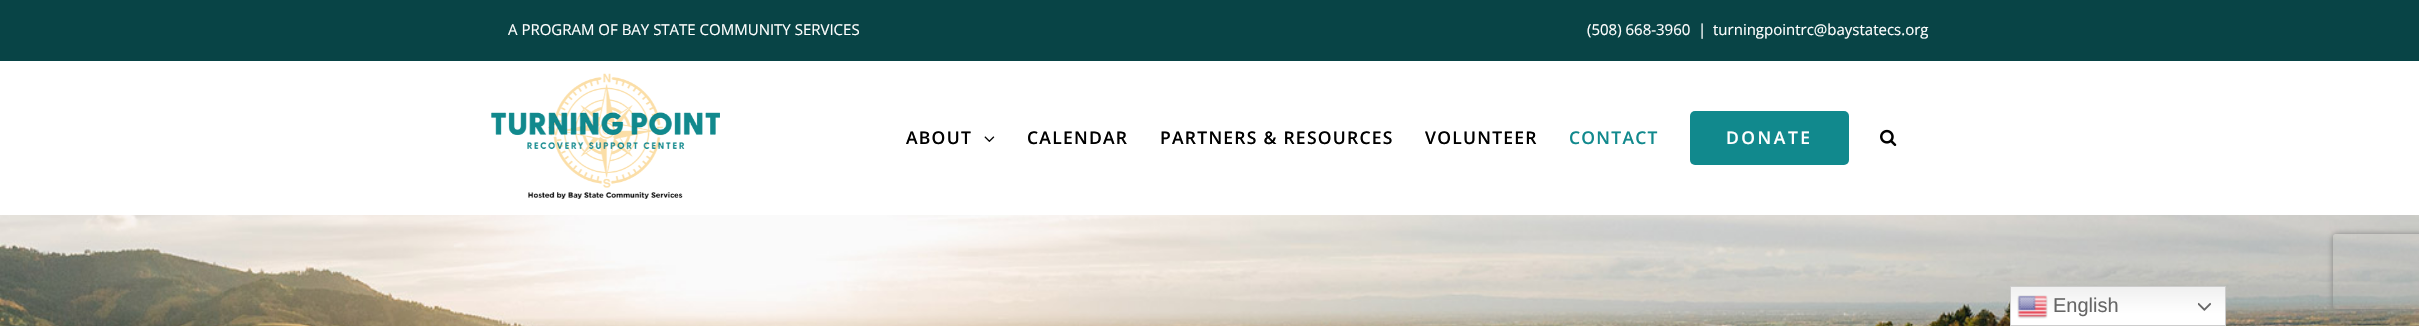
#include "include/core/SkBlurTypes.h"
#include "include/core/SkCanvas.h"
#include "include/core/SkData.h"
#include "include/core/SkFont.h"
#include "include/core/SkFontMgr.h"
#include "include/core/SkImage.h"
#include "include/core/SkMaskFilter.h"
#include "include/core/SkPaint.h"
#include "include/core/SkPathBuilder.h"
#include "include/core/SkTextBlob.h"
#include "include/effects/SkDashPathEffect.h"
#include "include/effects/SkGradientShader.h"
#include "include/utils/SkParsePath.h"

extern sk_sp<SkFontMgr> fontMgr;

static SkFont font(const char* family, int weight, float size, bool italic = false) {
    SkFontStyle style(weight, SkFontStyle::kNormal_Width,
        italic ? SkFontStyle::kItalic_Slant : SkFontStyle::kUpright_Slant);
    SkFont result(fontMgr->matchFamilyStyle(family, style), size);
    result.setSubpixel(true);
    return result;
}

static void drawLabel(SkCanvas* canvas, const char* s, float x, float y, const SkFont& font, SkColor color) {
    SkPaint ink(SkColor4f::FromColor(color));
    ink.setAntiAlias(true);
    canvas->drawString(s, x, y, font, ink);
}

static void drawTracked(SkCanvas* canvas, const char* s, float x, float y, const SkFont& font, const SkPaint& ink, float letter, float word) {
    std::vector<SkGlyphID> glyphs(font.countText(s, strlen(s), SkTextEncoding::kUTF8));
    std::vector<float> xs(glyphs.size());
    font.textToGlyphs(s, strlen(s), SkTextEncoding::kUTF8, glyphs);
    font.getXPos(glyphs, xs, x);
    float extra = 0;
    for (size_t i = 0; i < glyphs.size(); i++) {
        xs[i] += extra;
        extra += letter + word * (glyphs[i] == font.unicharToGlyph(' '));
    }
    canvas->drawTextBlob(SkTextBlob::MakeFromPosHGlyphs(glyphs, xs, y, font), 0, 0, ink);
}

static void fillRect(SkCanvas* canvas, float x, float y, float w, float h, SkColor color) {
    SkPaint ink(SkColor4f::FromColor(color));
    ink.setAntiAlias(true);
    canvas->drawRect(SkRect::MakeXYWH(x, y, w, h), ink);
}

static void fillRRect(SkCanvas* canvas, float x, float y, float w, float h, float radius, SkColor color) {
    SkPaint ink(SkColor4f::FromColor(color));
    ink.setAntiAlias(true);
    canvas->drawRoundRect(SkRect::MakeXYWH(x, y, w, h), radius, radius, ink);
}

static void drawPhoto(SkCanvas* canvas, const char* path, float x, float y, float w, float h) {
    auto image = SkImages::DeferredFromEncodedData(SkData::MakeFromFileName(path));
    canvas->drawImageRect(image, SkRect::MakeXYWH(x, y, w, h), SkSamplingOptions());
}

static SkPath parsePath(const char* data, bool evenOdd = false) {
    SkPath result = *SkParsePath::FromSVGString(data);
    if (evenOdd) result.setFillType(SkPathFillType::kEvenOdd);
    return result;
}

void draw(SkCanvas* canvas) {
    SkPaint paint;
    paint.setAntiAlias(true);
    canvas->clear(0xFFFFFFFF);
    fillRect(canvas, 0, 0, 2419, 61, 0xFF084446);
    SkFont font1 = font("Open Sans", 400, 15);
    drawLabel(canvas, "A PROGRAM OF BAY STATE COMMUNITY SERVICES", 508, 35, font1, 0xFFFFFFFF);
    drawLabel(canvas, "(508) 668-3960", 1587, 35, font1, 0xFFFFFFFF);
    drawLabel(canvas, "|", 1698, 35, font1, 0xFFFFFFFF);
    drawLabel(canvas, "turningpointrc@baystatecs.org", 1713, 35, font1, 0xFFFFFFFF);
    drawPhoto(canvas, "assets/img1.png", 491, 73, 229, 126);
    SkFont font2 = font("Open Sans", 600, 17.5f);
    paint.setColor(0xFF000000);
    drawTracked(canvas, "ABOUT", 906, 144, font2, paint, 1.25f, 0);
    drawPhoto(canvas, "assets/img2.png", 984, 136, 11, 6);
    drawTracked(canvas, "CALENDAR", 1027, 144, font2, paint, 1.25f, 0);
    drawTracked(canvas, "PARTNERS & RESOURCES", 1160, 144, font2, paint, 1.25f, 0);
    drawTracked(canvas, "VOLUNTEER", 1425, 144, font2, paint, 1.25f, 0);
    paint.setColor(0xFF11898D);
    drawTracked(canvas, "CONTACT", 1569, 144, font2, paint, 1.25f, 0);
    fillRRect(canvas, 1690, 111, 159, 54, 5, 0xFF11898D);
    paint.setColor(0xFFFFFFFF);
    drawTracked(canvas, "DONATE", 1726, 144, font2, paint, 2.5f, 0);
    drawPhoto(canvas, "assets/img3.png", 1880, 129, 17, 17);
    drawPhoto(canvas, "assets/img4.png", 0, 215, 2419, 111);
    {
        const SkColor colors[] = {0xFFEFEFEF, 0xFFFFFFFF};
        const float stops[] = {0, 0.7f};
        const SkPoint ends[] = {{2118, 286}, {2118, 326}};
        paint.setShader(SkGradientShader::MakeLinear(ends, colors, stops, 2, SkTileMode::kClamp));
        paint.setAlpha(255);
    }
    canvas->drawRect(SkRect::MakeXYWH(2011, 287, 214, 38), paint);
    paint.setStroke(true);
    paint.setStrokeWidth(1);
    paint.setShader(nullptr);
    paint.setColor(0xFFCCCCCC);
    canvas->drawRect(SkRect::MakeXYWH(2010.5f, 286.5f, 215, 39), paint);
    drawPhoto(canvas, "assets/img5.png", 2017, 295, 31, 24);
    SkFont font3 = font("Liberation Sans", 400, 20);
    drawLabel(canvas, "English", 2053, 312, font3, 0xFF666666);
    drawPhoto(canvas, "assets/img6.png", 2198, 302, 13, 9);
    canvas->save();
    canvas->clipPath(parsePath("M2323 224H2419V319H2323ZM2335.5 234H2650.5C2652 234 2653 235 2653 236.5V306.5C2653 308 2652 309 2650.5 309H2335.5C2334 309 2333 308 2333 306.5V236.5C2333 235 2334 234 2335.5 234Z", true), true);
    paint.setStroke(false);
    paint.setColor(0xFF808080);
    paint.setMaskFilter(SkMaskFilter::MakeBlur(kNormal_SkBlurStyle, 3));
    canvas->drawRoundRect(SkRect::MakeXYWH(2333, 234, 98, 75), 2.5f, 2.5f, paint);
    paint.setMaskFilter(nullptr);
    canvas->restore();
}
